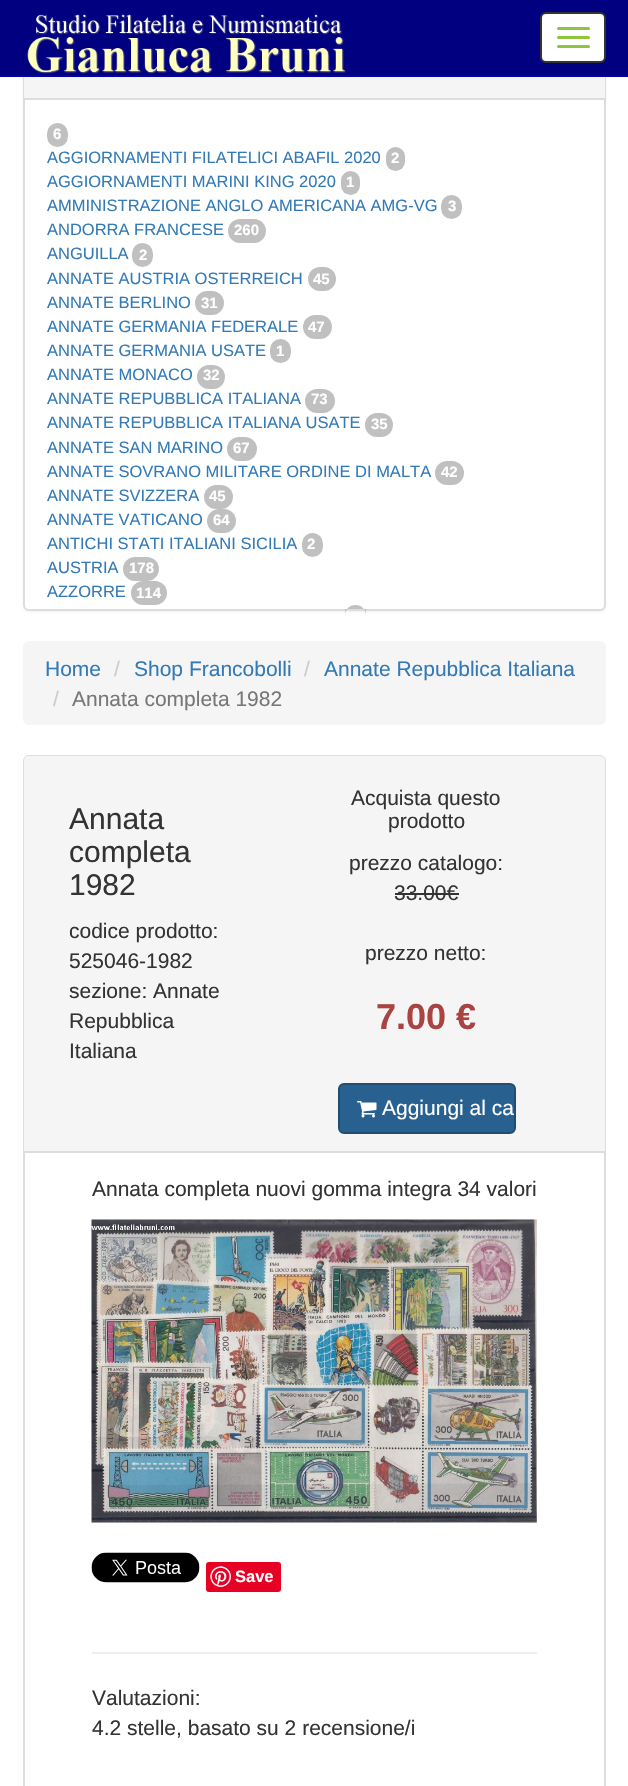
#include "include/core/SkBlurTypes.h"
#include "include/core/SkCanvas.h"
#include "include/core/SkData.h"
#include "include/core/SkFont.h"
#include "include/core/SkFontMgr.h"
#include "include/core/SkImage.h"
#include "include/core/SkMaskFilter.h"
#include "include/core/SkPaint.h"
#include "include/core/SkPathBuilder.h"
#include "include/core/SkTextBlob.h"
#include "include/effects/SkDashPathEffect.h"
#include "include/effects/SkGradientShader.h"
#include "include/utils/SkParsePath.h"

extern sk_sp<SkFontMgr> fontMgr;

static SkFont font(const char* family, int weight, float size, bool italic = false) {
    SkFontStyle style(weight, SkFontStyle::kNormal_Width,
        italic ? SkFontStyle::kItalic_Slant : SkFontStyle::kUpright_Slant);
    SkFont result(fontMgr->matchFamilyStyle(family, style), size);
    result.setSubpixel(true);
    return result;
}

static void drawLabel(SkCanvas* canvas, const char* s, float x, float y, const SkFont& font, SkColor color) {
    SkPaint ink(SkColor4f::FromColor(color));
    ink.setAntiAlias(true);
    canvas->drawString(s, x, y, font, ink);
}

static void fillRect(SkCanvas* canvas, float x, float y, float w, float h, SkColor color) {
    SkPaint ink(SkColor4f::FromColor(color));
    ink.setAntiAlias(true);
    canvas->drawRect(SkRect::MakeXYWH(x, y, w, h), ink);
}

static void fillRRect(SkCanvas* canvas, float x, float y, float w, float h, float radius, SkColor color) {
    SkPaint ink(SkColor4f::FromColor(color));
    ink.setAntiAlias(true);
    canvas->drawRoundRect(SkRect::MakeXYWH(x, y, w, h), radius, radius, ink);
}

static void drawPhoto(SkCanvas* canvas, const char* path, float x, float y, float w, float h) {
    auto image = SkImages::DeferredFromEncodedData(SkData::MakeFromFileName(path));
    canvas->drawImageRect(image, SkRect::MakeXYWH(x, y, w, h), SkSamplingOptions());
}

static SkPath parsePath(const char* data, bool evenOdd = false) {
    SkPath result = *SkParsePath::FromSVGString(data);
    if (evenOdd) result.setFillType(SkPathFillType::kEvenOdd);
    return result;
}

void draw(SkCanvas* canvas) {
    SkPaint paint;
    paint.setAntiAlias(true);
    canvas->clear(0xFFFFFFFF);
    paint.setColor(0x0D000000);
    paint.setMaskFilter(SkMaskFilter::MakeBlur(kNormal_SkBlurStyle, 1));
    canvas->drawRoundRect(SkRect::MakeXYWH(23, 9, 583, 603), 6, 6, paint);
    paint.setMaskFilter(nullptr);
    paint.setColor(0xFFFFFFFF);
    canvas->drawRoundRect(SkRect::MakeXYWH(24, 9, 581, 601), 5, 5, paint);
    paint.setStroke(true);
    paint.setStrokeWidth(2);
    paint.setColor(0xFFDDDDDD);
    canvas->drawRoundRect(SkRect::MakeXYWH(24, 9, 581, 601), 5, 5, paint);
    fillRect(canvas, 0, 0, 628, 75, 0xFF000080);
    fillRect(canvas, 0, 75, 628, 2, 0xFF0000AA);
    drawPhoto(canvas, "assets/img1.png", 27, 14, 319, 60);
    paint.setStroke(false);
    paint.setColor(0xFFFFFFFF);
    canvas->drawRoundRect(SkRect::MakeXYWH(541, 13, 64, 49), 5, 5, paint);
    paint.setStroke(true);
    paint.setColor(0xFF333333);
    canvas->drawRoundRect(SkRect::MakeXYWH(541, 13, 64, 49), 5, 5, paint);
    fillRRect(canvas, 557, 27, 33, 3, 1.5f, 0xFF8DC53E);
    fillRRect(canvas, 557, 36, 33, 3, 1.5f, 0xFF8DC53E);
    fillRRect(canvas, 557, 45, 33, 3, 1.5f, 0xFF8DC53E);
    fillRect(canvas, 24, 77, 581, 21, 0xFFF5F5F5);
    fillRect(canvas, 24, 98, 581, 2, 0xFFDDDDDD);
    fillRRect(canvas, 47, 123, 21, 24, 10.5f, 0xFFC0C0C0);
    SkFont font1 = font("Liberation Sans", 700, 15);
    drawLabel(canvas, "6", 53, 139, font1, 0xFFFFFFFF);
    SkFont font2 = font("Liberation Sans", 400, 16.5f);
    drawLabel(canvas, "AGGIORNAMENTI FILATELICI ABAFIL 2020", 47, 163, font2, 0xFF337AB7);
    fillRRect(canvas, 386, 147, 19, 24, 9.5f, 0xFFC0C0C0);
    drawLabel(canvas, "2", 391, 163, font1, 0xFFFFFFFF);
    drawLabel(canvas, "AGGIORNAMENTI MARINI KING 2020", 47, 187, font2, 0xFF337AB7);
    fillRRect(canvas, 341, 171, 19, 24, 9.5f, 0xFFC0C0C0);
    drawLabel(canvas, "1", 346, 187, font1, 0xFFFFFFFF);
    drawLabel(canvas, "AMMINISTRAZIONE ANGLO AMERICANA AMG-VG", 47, 211, font2, 0xFF337AB7);
    fillRRect(canvas, 441, 195, 21, 24, 10.5f, 0xFFC0C0C0);
    drawLabel(canvas, "3", 448, 211, font1, 0xFFFFFFFF);
    drawLabel(canvas, "ANDORRA FRANCESE", 47, 235, font2, 0xFF337AB7);
    fillRRect(canvas, 228, 219, 38, 24, 12, 0xFFC0C0C0);
    drawLabel(canvas, "260", 234, 235, font1, 0xFFFFFFFF);
    drawLabel(canvas, "ANGUILLA", 47, 259, font2, 0xFF337AB7);
    fillRRect(canvas, 132, 243, 21, 24, 10.5f, 0xFFC0C0C0);
    drawLabel(canvas, "2", 139, 260, font1, 0xFFFFFFFF);
    drawLabel(canvas, "ANNATE AUSTRIA OSTERREICH", 47, 284, font2, 0xFF337AB7);
    fillRRect(canvas, 308, 267, 28, 24, 12, 0xFFC0C0C0);
    drawLabel(canvas, "45", 313, 284, font1, 0xFFFFFFFF);
    drawLabel(canvas, "ANNATE BERLINO", 47, 308, font2, 0xFF337AB7);
    fillRRect(canvas, 195, 291, 29, 24, 12, 0xFFC0C0C0);
    drawLabel(canvas, "31", 201, 308, font1, 0xFFFFFFFF);
    drawLabel(canvas, "ANNATE GERMANIA FEDERALE", 47, 332, font2, 0xFF337AB7);
    fillRRect(canvas, 303, 315, 29, 24, 12, 0xFFC0C0C0);
    drawLabel(canvas, "47", 308, 332, font1, 0xFFFFFFFF);
    drawLabel(canvas, "ANNATE GERMANIA USATE", 47, 356, font2, 0xFF337AB7);
    fillRRect(canvas, 270, 339, 21, 24, 10.5f, 0xFFC0C0C0);
    drawLabel(canvas, "1", 276, 356, font1, 0xFFFFFFFF);
    drawLabel(canvas, "ANNATE MONACO", 47, 380, font2, 0xFF337AB7);
    fillRRect(canvas, 197, 365, 28, 24, 12, 0xFFC0C0C0);
    drawLabel(canvas, "32", 203, 380, font1, 0xFFFFFFFF);
    drawLabel(canvas, "ANNATE REPUBBLICA ITALIANA", 47, 404, font2, 0xFF337AB7);
    fillRRect(canvas, 305, 389, 30, 24, 12, 0xFFC0C0C0);
    drawLabel(canvas, "73", 311, 404, font1, 0xFFFFFFFF);
    drawLabel(canvas, "ANNATE REPUBBLICA ITALIANA USATE", 47, 428, font2, 0xFF337AB7);
    fillRRect(canvas, 365, 413, 28, 24, 12, 0xFFC0C0C0);
    drawLabel(canvas, "35", 371, 429, font1, 0xFFFFFFFF);
    drawLabel(canvas, "ANNATE SAN MARINO", 47, 453, font2, 0xFF337AB7);
    fillRRect(canvas, 227, 437, 30, 24, 12, 0xFFC0C0C0);
    drawLabel(canvas, "67", 233, 453, font1, 0xFFFFFFFF);
    drawLabel(canvas, "ANNATE SOVRANO MILITARE ORDINE DI MALTA", 47, 477, font2, 0xFF337AB7);
    fillRRect(canvas, 435, 461, 29, 24, 12, 0xFFC0C0C0);
    drawLabel(canvas, "42", 441, 477, font1, 0xFFFFFFFF);
    drawLabel(canvas, "ANNATE SVIZZERA", 47, 501, font2, 0xFF337AB7);
    fillRRect(canvas, 204, 485, 29, 24, 12, 0xFFC0C0C0);
    drawLabel(canvas, "45", 209, 501, font1, 0xFFFFFFFF);
    drawLabel(canvas, "ANNATE VATICANO", 47, 525, font2, 0xFF337AB7);
    fillRRect(canvas, 207, 509, 29, 24, 12, 0xFFC0C0C0);
    drawLabel(canvas, "64", 213, 525, font1, 0xFFFFFFFF);
    drawLabel(canvas, "ANTICHI STATI ITALIANI SICILIA", 47, 549, font2, 0xFF337AB7);
    fillRRect(canvas, 302, 533, 21, 24, 10.5f, 0xFFC0C0C0);
    drawLabel(canvas, "2", 307, 549, font1, 0xFFFFFFFF);
    drawLabel(canvas, "AUSTRIA", 47, 573, font2, 0xFF337AB7);
    fillRRect(canvas, 123, 557, 36, 24, 12, 0xFFC0C0C0);
    drawLabel(canvas, "178", 129, 573, font1, 0xFFFFFFFF);
    drawLabel(canvas, "AZZORRE", 47, 597, font2, 0xFF337AB7);
    fillRRect(canvas, 131, 581, 36, 24, 12, 0xFFC0C0C0);
    drawLabel(canvas, "114", 136, 598, font1, 0xFFFFFFFF);
    paint.setStroke(false);
    paint.setColor(0xFFC0C0C0);
    canvas->drawPath(parsePath("M355.5 605C361.5 605 366 609.5 366 615.5V609H345V615.5C345 609.5 349.5 605 355.5 605Z"), paint);
    fillRRect(canvas, 23, 641, 583, 84, 6, 0xFFF5F5F5);
    SkFont font3 = font("Liberation Sans", 400, 21);
    drawLabel(canvas, "Home", 45, 676, font3, 0xFF337AB7);
    drawLabel(canvas, "/", 114, 676, font3, 0xFFCCCCCC);
    drawLabel(canvas, "Shop Francobolli", 134, 676, font3, 0xFF337AB7);
    drawLabel(canvas, "/", 304, 676, font3, 0xFFCCCCCC);
    drawLabel(canvas, "Annate Repubblica Italiana", 324, 676, font3, 0xFF337AB7);
    drawLabel(canvas, "/", 53, 706, font3, 0xFFCCCCCC);
    drawLabel(canvas, "Annata completa 1982", 72, 706, font3, 0xFF777777);
    paint.setStroke(true);
    paint.setColor(0xFFDDDDDD);
    canvas->drawRoundRect(SkRect::MakeXYWH(24, 756, 581, 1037), 5, 5, paint);
    paint.setStroke(false);
    paint.setColor(0xFFF5F5F5);
    canvas->drawPath(parsePath("M29 756H600C603 756 605 758 605 761V1152H24V761C24 758 26 756 29 756Z"), paint);
    fillRect(canvas, 24, 1151, 581, 2, 0xFFDDDDDD);
    SkFont font4 = font("Liberation Sans", 400, 30);
    drawLabel(canvas, "Annata", 69, 829, font4, 0xFF333333);
    drawLabel(canvas, "completa", 69, 862, font4, 0xFF333333);
    drawLabel(canvas, "1982", 69, 895, font4, 0xFF333333);
    drawLabel(canvas, "codice prodotto:", 69, 938, font3, 0xFF333333);
    drawLabel(canvas, "525046-1982", 69, 968, font3, 0xFF333333);
    drawLabel(canvas, "sezione: Annate", 69, 998, font3, 0xFF333333);
    drawLabel(canvas, "Repubblica", 69, 1028, font3, 0xFF333333);
    drawLabel(canvas, "Italiana", 69, 1058, font3, 0xFF333333);
    drawLabel(canvas, "Acquista questo", 351, 805, font3, 0xFF333333);
    drawLabel(canvas, "prodotto", 388, 828, font3, 0xFF333333);
    drawLabel(canvas, "prezzo catalogo:", 349, 870, font3, 0xFF333333);
    drawLabel(canvas, "33.00€", 394, 900, font3, 0xFF333333);
    fillRect(canvas, 395, 893, 64, 2, 0xFF333333);
    drawLabel(canvas, "prezzo netto:", 365, 960, font3, 0xFF333333);
    SkFont font5 = font("Liberation Sans", 700, 36);
    drawLabel(canvas, "7.00 €", 376, 1029, font5, 0xFFA94442);
    paint.setColor(0xFF286090);
    canvas->drawRoundRect(SkRect::MakeXYWH(339, 1084, 176, 49), 5, 5, paint);
    paint.setStroke(true);
    paint.setColor(0xFF204D74);
    canvas->drawRoundRect(SkRect::MakeXYWH(339, 1084, 176, 49), 5, 5, paint);
    drawPhoto(canvas, "assets/img2.png", 357, 1101, 20, 17);
    drawLabel(canvas, "Aggiungi al ca", 382, 1115, font3, 0xFFFFFFFF);
    drawLabel(canvas, "Annata completa nuovi gomma integra 34 valori", 92, 1196, font3, 0xFF333333);
    drawPhoto(canvas, "assets/img3.png", 91, 1219, 446, 304);
    drawPhoto(canvas, "assets/img4.png", 91, 1552, 109, 31);
    fillRRect(canvas, 206, 1562, 75, 30, 3, 0xFFE60023);
    drawPhoto(canvas, "assets/img5.png", 210, 1566, 21, 21);
    SkFont font6 = font("Liberation Sans", 700, 16.5f);
    drawLabel(canvas, "Save", 235, 1582, font6, 0xFFFFFFFF);
    fillRect(canvas, 92, 1652, 445, 2, 0xFFEEEEEE);
    drawLabel(canvas, "Valutazioni:", 92, 1705, font3, 0xFF333333);
    drawLabel(canvas, "4.2 stelle, basato su 2 recensione/i", 92, 1735, font3, 0xFF333333);
}
